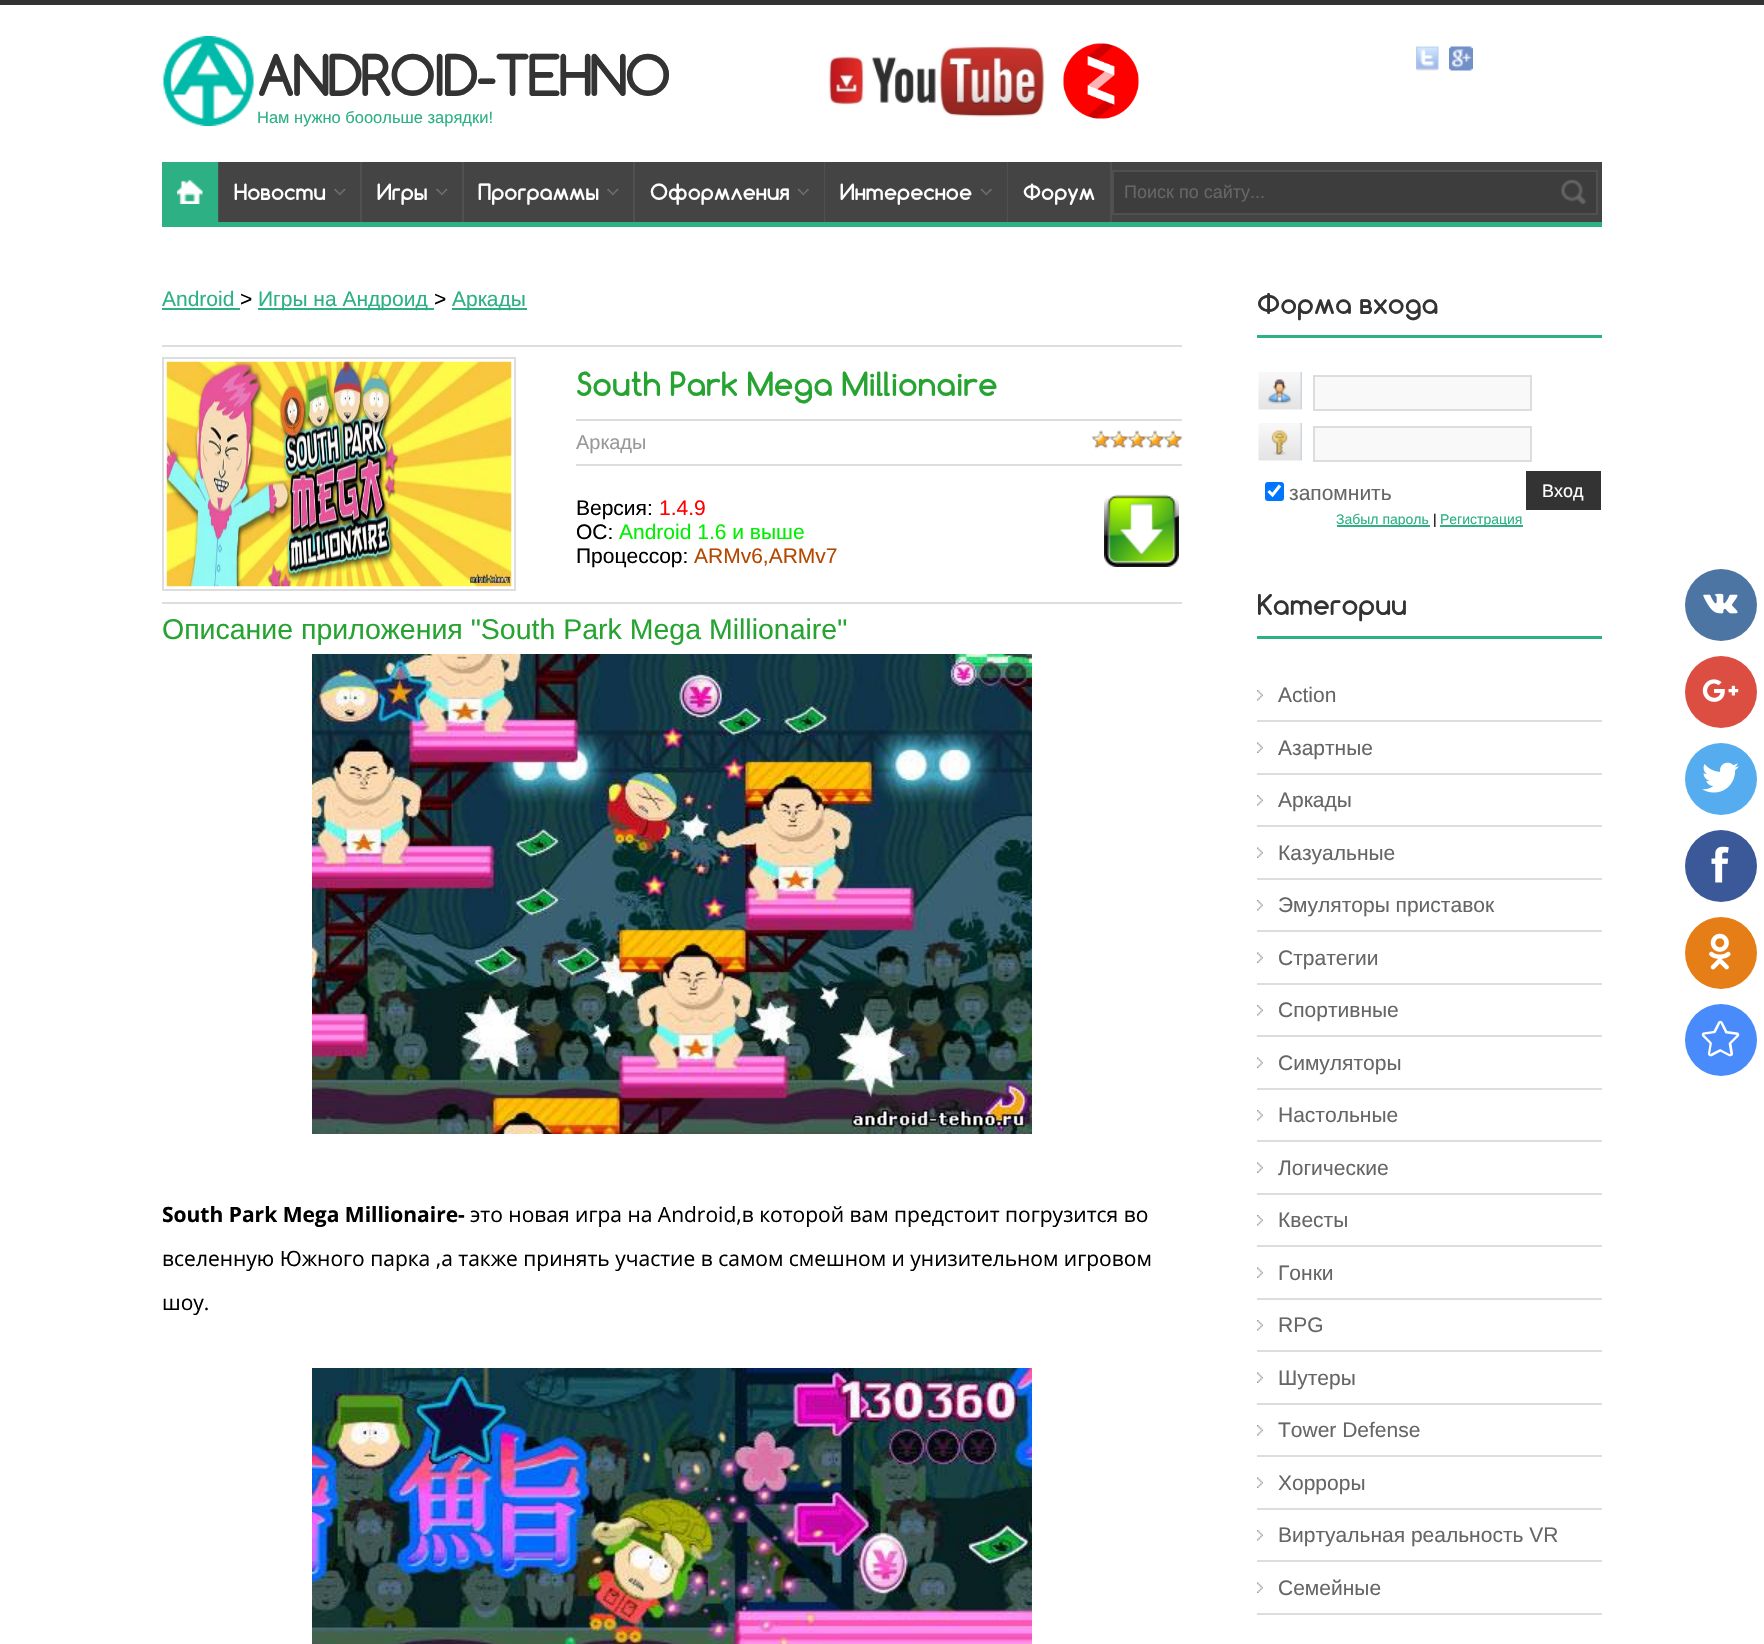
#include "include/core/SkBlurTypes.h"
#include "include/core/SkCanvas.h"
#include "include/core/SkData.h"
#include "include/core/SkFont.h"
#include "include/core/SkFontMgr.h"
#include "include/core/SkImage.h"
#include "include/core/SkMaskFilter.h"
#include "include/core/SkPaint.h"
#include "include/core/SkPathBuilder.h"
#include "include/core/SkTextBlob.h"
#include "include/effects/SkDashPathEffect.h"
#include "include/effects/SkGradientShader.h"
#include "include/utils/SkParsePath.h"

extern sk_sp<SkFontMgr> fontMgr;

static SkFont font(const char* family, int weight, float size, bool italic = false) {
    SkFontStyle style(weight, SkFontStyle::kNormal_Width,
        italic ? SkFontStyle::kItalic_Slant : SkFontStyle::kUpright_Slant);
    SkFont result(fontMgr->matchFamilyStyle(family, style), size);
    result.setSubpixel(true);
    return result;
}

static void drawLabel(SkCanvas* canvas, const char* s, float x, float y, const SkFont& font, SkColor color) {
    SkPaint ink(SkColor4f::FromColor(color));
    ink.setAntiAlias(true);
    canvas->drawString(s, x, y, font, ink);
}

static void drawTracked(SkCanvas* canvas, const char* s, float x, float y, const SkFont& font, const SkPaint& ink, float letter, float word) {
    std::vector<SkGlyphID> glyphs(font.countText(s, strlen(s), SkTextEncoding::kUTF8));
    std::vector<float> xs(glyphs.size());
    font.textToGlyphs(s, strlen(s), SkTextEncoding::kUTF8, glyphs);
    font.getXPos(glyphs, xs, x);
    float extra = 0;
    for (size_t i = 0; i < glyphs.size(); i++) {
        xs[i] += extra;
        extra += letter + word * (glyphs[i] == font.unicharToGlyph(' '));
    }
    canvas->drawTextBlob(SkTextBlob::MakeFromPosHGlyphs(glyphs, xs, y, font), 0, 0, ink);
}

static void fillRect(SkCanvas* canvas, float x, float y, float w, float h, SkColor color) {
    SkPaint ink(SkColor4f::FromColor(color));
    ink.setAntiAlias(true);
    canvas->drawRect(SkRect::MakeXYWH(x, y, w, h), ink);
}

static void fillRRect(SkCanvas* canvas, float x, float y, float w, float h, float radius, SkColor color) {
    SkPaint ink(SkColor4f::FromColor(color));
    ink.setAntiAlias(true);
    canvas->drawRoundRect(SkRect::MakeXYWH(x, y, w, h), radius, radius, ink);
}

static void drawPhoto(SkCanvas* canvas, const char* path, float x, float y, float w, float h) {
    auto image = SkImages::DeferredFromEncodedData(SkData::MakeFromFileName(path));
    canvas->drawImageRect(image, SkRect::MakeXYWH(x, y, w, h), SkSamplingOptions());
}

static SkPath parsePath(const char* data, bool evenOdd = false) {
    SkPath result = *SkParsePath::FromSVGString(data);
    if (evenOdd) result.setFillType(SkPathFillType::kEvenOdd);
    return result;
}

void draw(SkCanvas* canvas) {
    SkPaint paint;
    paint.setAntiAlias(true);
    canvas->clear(0xFFFFFFFF);
    fillRect(canvas, 0, 0, 1764, 5, 0xFF333333);
    drawPhoto(canvas, "assets/img1.png", 163, 36, 91, 90);
    SkFont font1 = font("Comfortaa", 700, 54);
    paint.setColor(0xFF333333);
    drawTracked(canvas, "ANDROID-TEHNO", 257, 96, font1, paint, -2.75f, 0);
    SkFont font2 = font("Liberation Sans", 400, 16.5f);
    drawLabel(canvas, "Нам нужно бооольше зарядки!", 257, 123, font2, 0xFF2CB084);
    drawPhoto(canvas, "assets/img2.png", 828, 46, 218, 71);
    drawPhoto(canvas, "assets/img3.png", 1063, 43, 76, 76);
    drawPhoto(canvas, "assets/img4.png", 1416, 46, 23, 25);
    drawPhoto(canvas, "assets/img5.png", 1449, 46, 24, 25);
    fillRect(canvas, 362, 162, 1240, 60, 0xFF444444);
    fillRect(canvas, 162, 222, 1440, 5, 0xFF2CB084);
    fillRect(canvas, 162, 162, 56, 60, 0xFF2CB084);
    drawPhoto(canvas, "assets/img6.png", 177, 180, 26, 24);
    fillRect(canvas, 218, 162, 1, 60, 0xFF505050);
    fillRect(canvas, 219, 162, 141, 60, 0xFF444444);
    drawPhoto(canvas, "assets/img7.png", 334, 189, 12, 6);
    fillRect(canvas, 360, 162, 2, 60, 0xFF505050);
    SkFont font3 = font("Comfortaa", 700, 21);
    drawLabel(canvas, "Новости", 234, 200, font3, 0xFFFFFFFF);
    drawPhoto(canvas, "assets/img8.png", 436, 189, 12, 6);
    fillRect(canvas, 462, 162, 2, 60, 0xFF505050);
    drawLabel(canvas, "Игры", 377, 200, font3, 0xFFFFFFFF);
    drawPhoto(canvas, "assets/img8.png", 607, 189, 12, 6);
    fillRect(canvas, 633, 162, 2, 60, 0xFF505050);
    drawLabel(canvas, "Программы", 478, 200, font3, 0xFFFFFFFF);
    drawPhoto(canvas, "assets/img9.png", 798, 189, 11, 6);
    fillRect(canvas, 824, 162, 1, 60, 0xFF505050);
    drawLabel(canvas, "Оформления", 650, 200, font3, 0xFFFFFFFF);
    drawPhoto(canvas, "assets/img9.png", 981, 189, 11, 6);
    fillRect(canvas, 1007, 162, 1, 60, 0xFF505050);
    drawLabel(canvas, "Интересное", 840, 200, font3, 0xFFFFFFFF);
    fillRect(canvas, 1110, 162, 2, 60, 0xFF505050);
    drawLabel(canvas, "Форум", 1023, 200, font3, 0xFFFFFFFF);
    paint.setColor(0xFF3D3D3D);
    canvas->drawRect(SkRect::MakeXYWH(1113, 171, 484, 43), paint);
    paint.setStroke(true);
    paint.setStrokeWidth(2);
    paint.setColor(0xFF505050);
    canvas->drawRect(SkRect::MakeXYWH(1113, 171, 484, 43), paint);
    SkFont font4 = font("Liberation Sans", 400, 18);
    drawLabel(canvas, "Поиск по сайту...", 1124, 198, font4, 0xFF666666);
    drawPhoto(canvas, "assets/img10.png", 1561, 179, 25, 26);
    SkFont font5 = font("Liberation Sans", 400, 21);
    drawLabel(canvas, "Android", 162, 306, font5, 0xFF2CB084);
    fillRect(canvas, 162, 308, 78, 2, 0xFF2CB084);
    drawLabel(canvas, ">", 240, 306, font5, 0xFF000000);
    fillRect(canvas, 258, 308, 176, 2, 0xFF2CB084);
    drawLabel(canvas, "Игры на Андроид", 258, 306, font5, 0xFF2CB084);
    drawLabel(canvas, ">", 434, 306, font5, 0xFF000000);
    fillRect(canvas, 452, 308, 75, 2, 0xFF2CB084);
    drawLabel(canvas, "Аркады", 452, 306, font5, 0xFF2CB084);
    fillRect(canvas, 162, 345, 1020, 2, 0xFFDDDDDD);
    paint.setColor(0xFFDDDDDD);
    canvas->drawRect(SkRect::MakeXYWH(163, 358, 352, 232), paint);
    drawPhoto(canvas, "assets/img11.png", 166, 361, 346, 226);
    SkFont font6 = font("Comfortaa", 700, 31.5f);
    drawLabel(canvas, "South Park Mega Millionaire", 576, 396, font6, 0xFF26A331);
    fillRect(canvas, 576, 419, 606, 2, 0xFFDDDDDD);
    fillRect(canvas, 576, 464, 606, 2, 0xFFDDDDDD);
    SkFont font7 = font("Liberation Sans", 400, 20);
    drawLabel(canvas, "Аркады", 576, 449, font7, 0xFF999999);
    drawPhoto(canvas, "assets/img12.png", 1092, 430, 90, 19);
    drawPhoto(canvas, "assets/img13.png", 1092, 430, 90, 19);
    drawLabel(canvas, "Версия:", 576, 515, font5, 0xFF000000);
    drawLabel(canvas, "1.4.9", 659, 515, font5, 0xFFFF0000);
    drawLabel(canvas, "ОС:", 576, 539, font5, 0xFF000000);
    drawLabel(canvas, "Android 1.6 и выше", 619, 539, font5, 0xFF00EE00);
    drawLabel(canvas, "Процессор:", 576, 563, font5, 0xFF000000);
    drawLabel(canvas, "ARMv6,ARMv7", 694, 563, font5, 0xFFB44800);
    drawPhoto(canvas, "assets/img14.png", 1104, 494, 75, 73);
    fillRect(canvas, 162, 602, 1020, 2, 0xFFDDDDDD);
    SkFont font8 = font("Liberation Sans", 400, 28.5f);
    drawLabel(canvas, "Описание приложения \"South Park Mega Millionaire\"", 162, 639, font8, 0xFF26A331);
    drawPhoto(canvas, "assets/img15.png", 312, 654, 720, 480);
    SkFont font9 = font("Open Sans", 700, 21);
    drawLabel(canvas, "South Park Mega Millionaire-", 162, 1222, font9, 0xFF000000);
    SkFont font10 = font("Open Sans", 400, 21);
    drawLabel(canvas, "это новая игра на Android,в которой вам предстоит погрузится во", 470, 1222, font10, 0xFF000000);
    drawLabel(canvas, "вселенную Южного парка ,а также принять участие в самом смешном и унизительном игровом", 162, 1266, font10, 0xFF000000);
    drawLabel(canvas, "шоу.", 162, 1310, font10, 0xFF000000);
    drawPhoto(canvas, "assets/img16.png", 312, 1368, 720, 276);
    fillRect(canvas, 1257, 335, 345, 3, 0xFF2CB084);
    SkFont font11 = font("Comfortaa", 700, 27);
    drawLabel(canvas, "Форма входа", 1257, 314, font11, 0xFF333333);
    drawPhoto(canvas, "assets/img17.png", 1258, 372, 44, 38);
    paint.setStroke(false);
    paint.setColor(0xFFF9F9F9);
    canvas->drawRect(SkRect::MakeXYWH(1314, 376, 217, 34), paint);
    paint.setStroke(true);
    paint.setColor(0xFFDDDDDD);
    canvas->drawRect(SkRect::MakeXYWH(1314, 376, 217, 34), paint);
    drawPhoto(canvas, "assets/img18.png", 1258, 423, 44, 38);
    paint.setStroke(false);
    paint.setColor(0xFFF9F9F9);
    canvas->drawRect(SkRect::MakeXYWH(1314, 427, 217, 34), paint);
    paint.setStroke(true);
    paint.setColor(0xFFDDDDDD);
    canvas->drawRect(SkRect::MakeXYWH(1314, 427, 217, 34), paint);
    fillRRect(canvas, 1265, 482, 19, 19, 3, 0xFF0075FF);
    paint.setStrokeWidth(3.1f);
    paint.setColor(0xFFFFFFFF);
    canvas->drawPath(parsePath("M1268.5 491L1272.5 495L1280 485.5"), paint);
    drawLabel(canvas, "запомнить", 1289, 500, font5, 0xFF666666);
    fillRect(canvas, 1526, 471, 75, 39, 0xFF333333);
    drawLabel(canvas, "Вход", 1542, 497, font4, 0xFFFFFFFF);
    fillRect(canvas, 1337, 525, 93, 2, 0xFF2CB084);
    SkFont font12 = font("Liberation Sans", 400, 14);
    drawLabel(canvas, "Забыл пароль", 1336, 524, font12, 0xFF2CB084);
    drawLabel(canvas, "|", 1433, 524, font12, 0xFF000000);
    fillRect(canvas, 1440, 525, 83, 2, 0xFF2CB084);
    drawLabel(canvas, "Регистрация", 1440, 524, font12, 0xFF2CB084);
    fillRect(canvas, 1257, 636, 345, 3, 0xFF2CB084);
    drawLabel(canvas, "Категории", 1257, 615, font11, 0xFF333333);
    drawPhoto(canvas, "assets/img19.png", 1257, 690, 6, 11);
    fillRect(canvas, 1257, 720, 345, 2, 0xFFDDDDDD);
    drawLabel(canvas, "Action", 1278, 702, font5, 0xFF666666);
    drawPhoto(canvas, "assets/img20.png", 1257, 742, 6, 11);
    fillRect(canvas, 1257, 773, 345, 2, 0xFFDDDDDD);
    drawLabel(canvas, "Азартные", 1278, 755, font5, 0xFF666666);
    drawPhoto(canvas, "assets/img19.png", 1257, 795, 6, 11);
    fillRect(canvas, 1257, 825, 345, 2, 0xFFDDDDDD);
    drawLabel(canvas, "Аркады", 1278, 807, font5, 0xFF666666);
    drawPhoto(canvas, "assets/img20.png", 1257, 847, 6, 11);
    fillRect(canvas, 1257, 878, 345, 2, 0xFFDDDDDD);
    drawLabel(canvas, "Казуальные", 1278, 860, font5, 0xFF666666);
    drawPhoto(canvas, "assets/img19.png", 1257, 900, 6, 11);
    fillRect(canvas, 1257, 930, 345, 2, 0xFFDDDDDD);
    drawLabel(canvas, "Эмуляторы приставок", 1278, 912, font5, 0xFF666666);
    drawPhoto(canvas, "assets/img20.png", 1257, 952, 6, 11);
    fillRect(canvas, 1257, 983, 345, 2, 0xFFDDDDDD);
    drawLabel(canvas, "Стратегии", 1278, 965, font5, 0xFF666666);
    drawPhoto(canvas, "assets/img19.png", 1257, 1005, 6, 11);
    fillRect(canvas, 1257, 1035, 345, 2, 0xFFDDDDDD);
    drawLabel(canvas, "Спортивные", 1278, 1017, font5, 0xFF666666);
    drawPhoto(canvas, "assets/img20.png", 1257, 1057, 6, 11);
    fillRect(canvas, 1257, 1088, 345, 2, 0xFFDDDDDD);
    drawLabel(canvas, "Симуляторы", 1278, 1070, font5, 0xFF666666);
    drawPhoto(canvas, "assets/img19.png", 1257, 1110, 6, 11);
    fillRect(canvas, 1257, 1140, 345, 2, 0xFFDDDDDD);
    drawLabel(canvas, "Настольные", 1278, 1122, font5, 0xFF666666);
    drawPhoto(canvas, "assets/img20.png", 1257, 1162, 6, 11);
    fillRect(canvas, 1257, 1193, 345, 2, 0xFFDDDDDD);
    drawLabel(canvas, "Логические", 1278, 1175, font5, 0xFF666666);
    drawPhoto(canvas, "assets/img19.png", 1257, 1215, 6, 11);
    fillRect(canvas, 1257, 1245, 345, 2, 0xFFDDDDDD);
    drawLabel(canvas, "Квесты", 1278, 1227, font5, 0xFF666666);
    drawPhoto(canvas, "assets/img20.png", 1257, 1267, 6, 11);
    fillRect(canvas, 1257, 1298, 345, 2, 0xFFDDDDDD);
    drawLabel(canvas, "Гонки", 1278, 1280, font5, 0xFF666666);
    drawPhoto(canvas, "assets/img19.png", 1257, 1320, 6, 11);
    fillRect(canvas, 1257, 1350, 345, 2, 0xFFDDDDDD);
    drawLabel(canvas, "RPG", 1278, 1332, font5, 0xFF666666);
    drawPhoto(canvas, "assets/img20.png", 1257, 1372, 6, 11);
    fillRect(canvas, 1257, 1403, 345, 2, 0xFFDDDDDD);
    drawLabel(canvas, "Шутеры", 1278, 1385, font5, 0xFF666666);
    drawPhoto(canvas, "assets/img19.png", 1257, 1425, 6, 11);
    fillRect(canvas, 1257, 1455, 345, 2, 0xFFDDDDDD);
    drawLabel(canvas, "Tower Defense", 1278, 1437, font5, 0xFF666666);
    drawPhoto(canvas, "assets/img20.png", 1257, 1477, 6, 11);
    fillRect(canvas, 1257, 1508, 345, 2, 0xFFDDDDDD);
    drawLabel(canvas, "Хорроры", 1278, 1490, font5, 0xFF666666);
    drawPhoto(canvas, "assets/img19.png", 1257, 1530, 6, 11);
    fillRect(canvas, 1257, 1560, 345, 2, 0xFFDDDDDD);
    drawLabel(canvas, "Виртуальная реальность VR", 1278, 1542, font5, 0xFF666666);
    drawPhoto(canvas, "assets/img20.png", 1257, 1582, 6, 11);
    fillRect(canvas, 1257, 1613, 345, 2, 0xFFDDDDDD);
    drawLabel(canvas, "Семейные", 1278, 1595, font5, 0xFF666666);
    paint.setStroke(false);
    paint.setColor(0xFF4D75A3);
    canvas->drawCircle(1721, 605, 36, paint);
    drawPhoto(canvas, "assets/img21.png", 1703, 593, 35, 21);
    paint.setColor(0xFFDC4E41);
    canvas->drawCircle(1721, 692, 36, paint);
    drawPhoto(canvas, "assets/img22.png", 1702, 679, 37, 23);
    paint.setColor(0xFF55ACEE);
    canvas->drawCircle(1721, 779, 36, paint);
    drawPhoto(canvas, "assets/img23.png", 1702, 762, 37, 31);
    paint.setColor(0xFF3B5998);
    canvas->drawCircle(1721, 866, 36, paint);
    drawPhoto(canvas, "assets/img24.png", 1711, 846, 18, 37);
    paint.setColor(0xFFE67E17);
    canvas->drawCircle(1721, 953, 36, paint);
    drawPhoto(canvas, "assets/img25.png", 1709, 933, 22, 37);
    paint.setColor(0xFF498BFA);
    canvas->drawCircle(1721, 1040, 36, paint);
    drawPhoto(canvas, "assets/img26.png", 1701, 1020, 39, 37);
}
